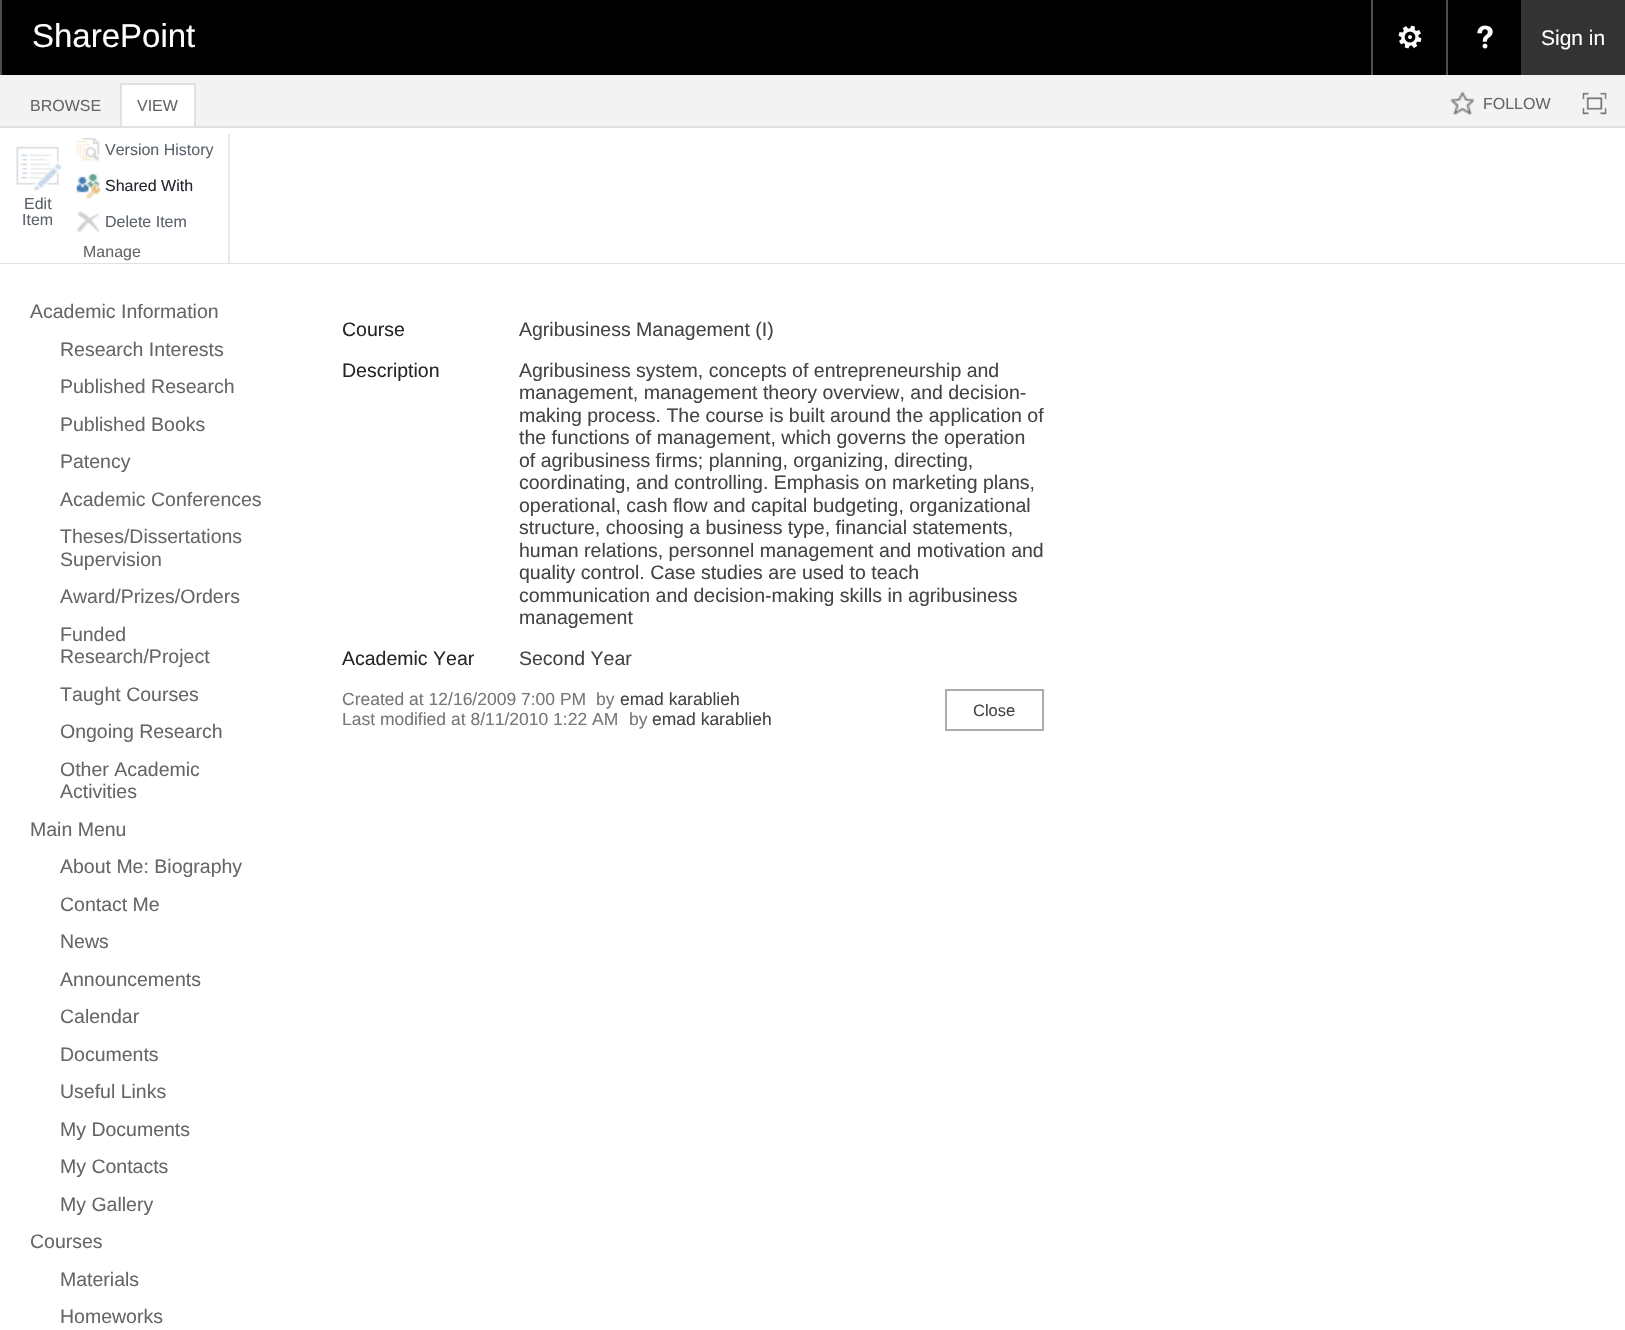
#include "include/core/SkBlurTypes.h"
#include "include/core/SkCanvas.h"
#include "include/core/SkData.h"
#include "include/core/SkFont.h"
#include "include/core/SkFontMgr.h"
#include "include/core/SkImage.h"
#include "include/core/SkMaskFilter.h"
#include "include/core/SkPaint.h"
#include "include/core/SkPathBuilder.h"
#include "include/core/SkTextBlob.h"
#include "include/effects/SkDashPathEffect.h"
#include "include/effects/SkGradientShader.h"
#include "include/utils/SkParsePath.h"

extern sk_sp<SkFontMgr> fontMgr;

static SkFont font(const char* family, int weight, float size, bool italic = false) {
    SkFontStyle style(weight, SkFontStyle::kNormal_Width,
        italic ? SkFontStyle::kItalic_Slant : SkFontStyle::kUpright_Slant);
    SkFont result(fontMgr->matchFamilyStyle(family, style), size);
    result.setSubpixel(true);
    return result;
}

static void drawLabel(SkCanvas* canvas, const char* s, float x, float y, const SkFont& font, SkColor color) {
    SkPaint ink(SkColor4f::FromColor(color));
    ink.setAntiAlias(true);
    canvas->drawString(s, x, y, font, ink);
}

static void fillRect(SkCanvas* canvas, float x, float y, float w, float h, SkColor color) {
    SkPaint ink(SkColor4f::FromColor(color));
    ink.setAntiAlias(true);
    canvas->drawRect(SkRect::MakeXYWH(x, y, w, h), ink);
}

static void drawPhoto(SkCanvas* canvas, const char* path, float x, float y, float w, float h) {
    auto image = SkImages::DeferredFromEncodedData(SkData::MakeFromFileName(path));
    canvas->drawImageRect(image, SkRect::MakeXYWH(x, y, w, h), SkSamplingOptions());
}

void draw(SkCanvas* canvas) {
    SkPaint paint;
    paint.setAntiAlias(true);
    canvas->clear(0xFFFFFFFF);
    fillRect(canvas, 2, 0, 1519, 75, 0xFF000000);
    fillRect(canvas, 0, 0, 2, 75, 0xFF4D4D4D);
    SkFont font1 = font("Liberation Sans", 400, 33);
    drawLabel(canvas, "SharePoint", 32, 47, font1, 0xFFFFFFFF);
    fillRect(canvas, 1371, 0, 2, 75, 0xFF4D4D4D);
    drawPhoto(canvas, "assets/img1.png", 1398, 25, 24, 24);
    fillRect(canvas, 1446, 0, 2, 75, 0xFF4D4D4D);
    drawPhoto(canvas, "assets/img2.png", 1477, 25, 16, 24);
    fillRect(canvas, 1521, 0, 104, 75, 0xFF333333);
    SkFont font2 = font("Liberation Sans", 400, 21);
    drawLabel(canvas, "Sign in", 1541, 45, font2, 0xFFFFFFFF);
    fillRect(canvas, 0, 75, 1625, 51, 0xFFF3F3F3);
    fillRect(canvas, 0, 126, 1625, 2, 0xFFE1E1E1);
    SkFont font3 = font("Liberation Sans", 400, 16);
    drawLabel(canvas, "BROWSE", 30, 111, font3, 0xFF666666);
    fillRect(canvas, 122, 85, 72, 41, 0xFFFFFFFF);
    fillRect(canvas, 120, 83, 75, 2, 0xFFE1E1E1);
    fillRect(canvas, 194, 83, 2, 43, 0xFFE1E1E1);
    fillRect(canvas, 120, 83, 2, 43, 0xFFE1E1E1);
    drawLabel(canvas, "VIEW", 137, 111, font3, 0xFF666666);
    drawPhoto(canvas, "assets/img3.png", 1450, 91, 25, 24);
    drawLabel(canvas, "FOLLOW", 1483, 109, font3, 0xFF666666);
    drawPhoto(canvas, "assets/img4.png", 1582, 92, 25, 23);
    fillRect(canvas, 0, 263, 1625, 1, 0xFFE1E1E1);
    drawPhoto(canvas, "assets/img5.png", 16, 146, 46, 45);
    drawLabel(canvas, "Edit", 24, 209, font3, 0xFF5B626C);
    drawLabel(canvas, "Item", 22, 225, font3, 0xFF5B626C);
    drawPhoto(canvas, "assets/img6.png", 76, 138, 24, 23);
    drawLabel(canvas, "Version History", 105, 155, font3, 0xFF5B626C);
    drawPhoto(canvas, "assets/img7.png", 76, 174, 25, 24);
    drawLabel(canvas, "Shared With", 105, 191, font3, 0xFF23272C);
    drawPhoto(canvas, "assets/img8.png", 76, 211, 24, 22);
    drawLabel(canvas, "Delete Item", 105, 227, font3, 0xFF5B626C);
    drawLabel(canvas, "Manage", 83, 257, font3, 0xFF666666);
    fillRect(canvas, 228, 134, 2, 129, 0xFFE7E7E8);
    SkFont font4 = font("Liberation Sans", 400, 19.5f);
    drawLabel(canvas, "Academic Information", 30, 318, font4, 0xFF666666);
    drawLabel(canvas, "Research Interests", 60, 356, font4, 0xFF666666);
    drawLabel(canvas, "Published Research", 60, 393, font4, 0xFF666666);
    drawLabel(canvas, "Published Books", 60, 431, font4, 0xFF666666);
    drawLabel(canvas, "Patency", 60, 468, font4, 0xFF666666);
    drawLabel(canvas, "Academic Conferences", 60, 506, font4, 0xFF666666);
    drawLabel(canvas, "Theses/Dissertations", 60, 543, font4, 0xFF666666);
    drawLabel(canvas, "Supervision", 60, 566, font4, 0xFF666666);
    drawLabel(canvas, "Award/Prizes/Orders", 60, 603, font4, 0xFF666666);
    drawLabel(canvas, "Funded", 60, 641, font4, 0xFF666666);
    drawLabel(canvas, "Research/Project", 60, 663, font4, 0xFF666666);
    drawLabel(canvas, "Taught Courses", 60, 701, font4, 0xFF666666);
    drawLabel(canvas, "Ongoing Research", 60, 738, font4, 0xFF666666);
    drawLabel(canvas, "Other Academic", 60, 776, font4, 0xFF666666);
    drawLabel(canvas, "Activities", 60, 798, font4, 0xFF666666);
    drawLabel(canvas, "Main Menu", 30, 836, font4, 0xFF666666);
    drawLabel(canvas, "About Me: Biography", 60, 873, font4, 0xFF666666);
    drawLabel(canvas, "Contact Me", 60, 911, font4, 0xFF666666);
    drawLabel(canvas, "News", 60, 948, font4, 0xFF666666);
    drawLabel(canvas, "Announcements", 60, 986, font4, 0xFF666666);
    drawLabel(canvas, "Calendar", 60, 1023, font4, 0xFF666666);
    drawLabel(canvas, "Documents", 60, 1061, font4, 0xFF666666);
    drawLabel(canvas, "Useful Links", 60, 1098, font4, 0xFF666666);
    drawLabel(canvas, "My Documents", 60, 1136, font4, 0xFF666666);
    drawLabel(canvas, "My Contacts", 60, 1173, font4, 0xFF666666);
    drawLabel(canvas, "My Gallery", 60, 1211, font4, 0xFF666666);
    drawLabel(canvas, "Courses", 30, 1248, font4, 0xFF666666);
    drawLabel(canvas, "Materials", 60, 1286, font4, 0xFF666666);
    drawLabel(canvas, "Homeworks", 60, 1323, font4, 0xFF666666);
    drawLabel(canvas, "Course", 342, 336, font4, 0xFF262626);
    drawLabel(canvas, "Agribusiness Management (I)", 519, 336, font4, 0xFF444444);
    drawLabel(canvas, "Description", 342, 377, font4, 0xFF262626);
    drawLabel(canvas, "Agribusiness system, concepts of entrepreneurship and", 519, 377, font4, 0xFF444444);
    drawLabel(canvas, "management, management theory overview, and decision-", 519, 399, font4, 0xFF444444);
    drawLabel(canvas, "making process. The course is built around the application of", 519, 422, font4, 0xFF444444);
    drawLabel(canvas, "the functions of management, which governs the operation", 519, 444, font4, 0xFF444444);
    drawLabel(canvas, "of agribusiness firms; planning, organizing, directing,", 519, 467, font4, 0xFF444444);
    drawLabel(canvas, "coordinating, and controlling. Emphasis on marketing plans,", 519, 489, font4, 0xFF444444);
    drawLabel(canvas, "operational, cash flow and capital budgeting, organizational", 519, 512, font4, 0xFF444444);
    drawLabel(canvas, "structure, choosing a business type, financial statements,", 519, 534, font4, 0xFF444444);
    drawLabel(canvas, "human relations, personnel management and motivation and", 519, 557, font4, 0xFF444444);
    drawLabel(canvas, "quality control. Case studies are used to teach", 519, 579, font4, 0xFF444444);
    drawLabel(canvas, "communication and decision-making skills in agribusiness", 519, 602, font4, 0xFF444444);
    drawLabel(canvas, "management", 519, 624, font4, 0xFF444444);
    drawLabel(canvas, "Academic Year", 342, 665, font4, 0xFF262626);
    drawLabel(canvas, "Second Year", 519, 665, font4, 0xFF444444);
    SkFont font5 = font("Liberation Sans", 400, 17.5f);
    drawLabel(canvas, "Created at 12/16/2009 7:00 PM", 342, 705, font5, 0xFF777777);
    drawLabel(canvas, "by", 596, 705, font5, 0xFF777777);
    drawLabel(canvas, "emad karablieh", 620, 705, font5, 0xFF444444);
    drawLabel(canvas, "Last modified at 8/11/2010 1:22 AM", 342, 725, font5, 0xFF777777);
    drawLabel(canvas, "by", 629, 725, font5, 0xFF777777);
    drawLabel(canvas, "emad karablieh", 652, 725, font5, 0xFF444444);
    paint.setStroke(true);
    paint.setStrokeWidth(2);
    paint.setColor(0xFFABABAB);
    canvas->drawRect(SkRect::MakeXYWH(946, 690, 97, 40), paint);
    SkFont font6 = font("Liberation Sans", 400, 16.5f);
    drawLabel(canvas, "Close", 973, 716, font6, 0xFF444444);
}
